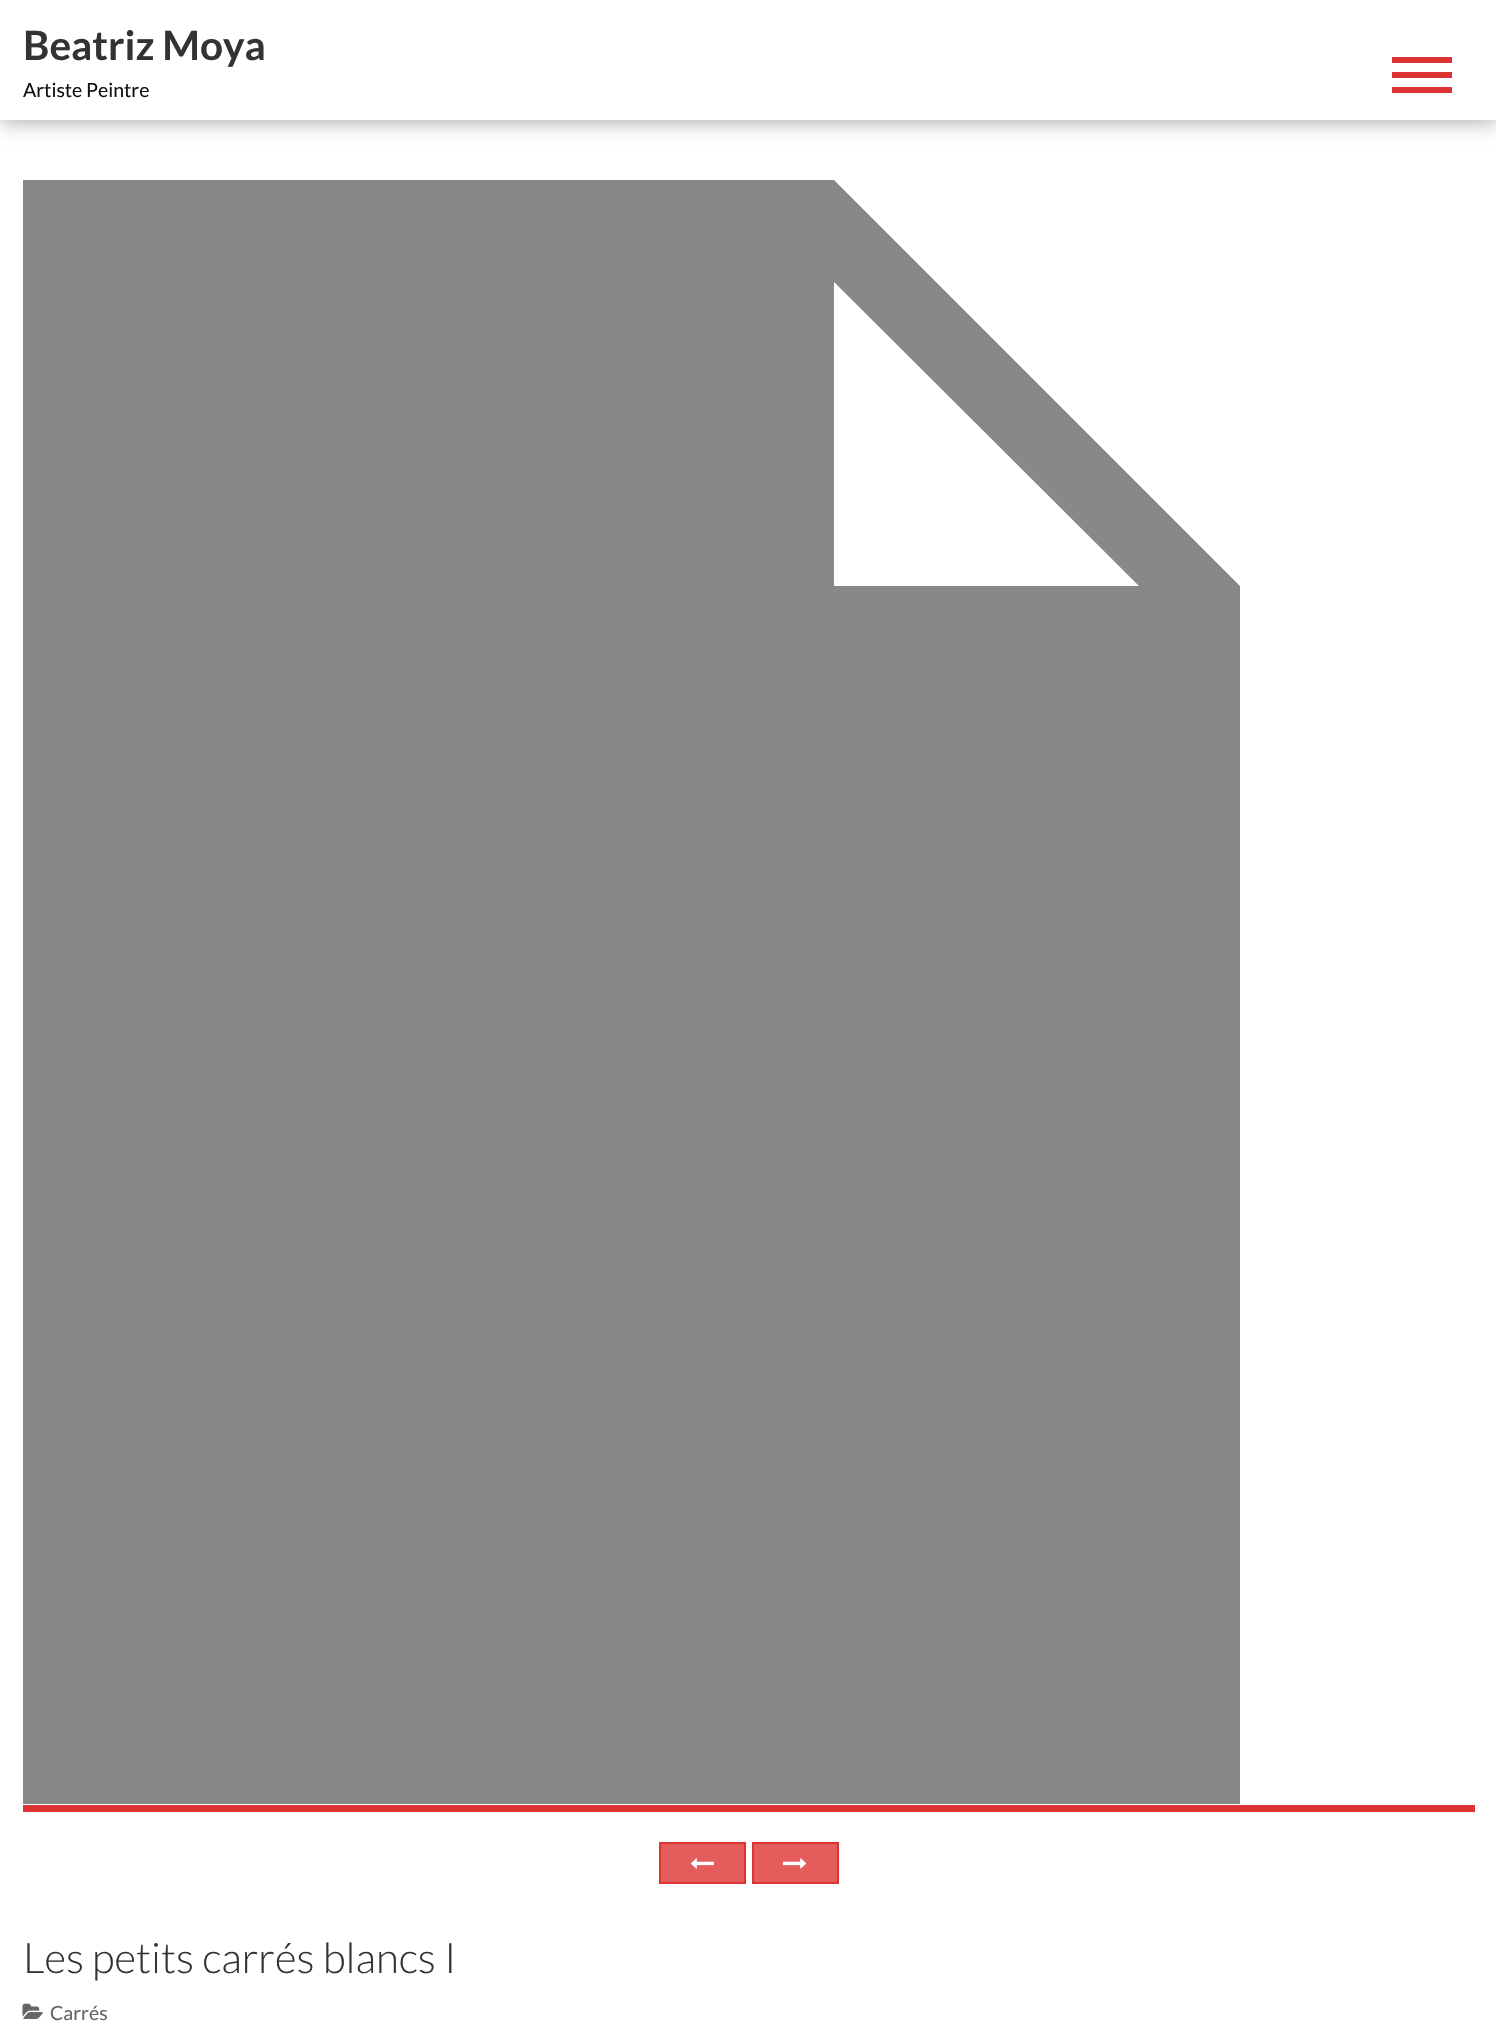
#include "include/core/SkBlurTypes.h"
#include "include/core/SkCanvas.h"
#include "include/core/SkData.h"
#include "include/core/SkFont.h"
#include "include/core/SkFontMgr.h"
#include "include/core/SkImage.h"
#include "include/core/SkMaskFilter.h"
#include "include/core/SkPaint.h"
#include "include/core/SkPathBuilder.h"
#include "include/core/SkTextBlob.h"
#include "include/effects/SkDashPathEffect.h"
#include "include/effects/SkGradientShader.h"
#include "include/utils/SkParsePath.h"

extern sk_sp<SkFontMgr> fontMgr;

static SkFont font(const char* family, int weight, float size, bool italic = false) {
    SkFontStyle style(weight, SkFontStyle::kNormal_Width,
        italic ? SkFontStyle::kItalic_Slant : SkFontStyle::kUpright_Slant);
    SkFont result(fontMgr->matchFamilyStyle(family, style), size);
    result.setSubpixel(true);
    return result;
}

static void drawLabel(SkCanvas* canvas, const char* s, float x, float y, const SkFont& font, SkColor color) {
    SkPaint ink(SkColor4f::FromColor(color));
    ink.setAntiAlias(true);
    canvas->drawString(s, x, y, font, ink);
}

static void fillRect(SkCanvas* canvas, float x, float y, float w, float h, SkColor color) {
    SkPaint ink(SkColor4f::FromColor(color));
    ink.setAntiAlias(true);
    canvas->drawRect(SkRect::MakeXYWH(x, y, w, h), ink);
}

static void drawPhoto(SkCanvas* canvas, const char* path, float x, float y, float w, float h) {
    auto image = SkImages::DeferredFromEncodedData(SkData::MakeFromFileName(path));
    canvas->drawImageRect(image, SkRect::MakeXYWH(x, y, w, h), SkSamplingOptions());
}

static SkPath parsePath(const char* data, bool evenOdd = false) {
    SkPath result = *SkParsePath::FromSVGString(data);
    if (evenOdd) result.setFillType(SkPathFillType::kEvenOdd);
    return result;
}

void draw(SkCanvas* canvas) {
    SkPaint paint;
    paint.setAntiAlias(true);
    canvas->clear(0xFFFFFFFF);
    paint.setColor(0x4D000000);
    paint.setMaskFilter(SkMaskFilter::MakeBlur(kNormal_SkBlurStyle, 9));
    canvas->drawRect(SkRect::MakeXYWH(0, 3, 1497, 120), paint);
    paint.setMaskFilter(nullptr);
    fillRect(canvas, 0, 0, 1496, 120, 0xFFFFFFFF);
    SkFont font1 = font("Lato", 700, 40.5f);
    drawLabel(canvas, "Beatriz Moya", 23, 60, font1, 0xFF333333);
    SkFont font2 = font("Lato", 400, 19.5f);
    drawLabel(canvas, "Artiste Peintre", 23, 97, font2, 0xFF111111);
    fillRect(canvas, 1392, 57, 60, 6, 0xFFDD3333);
    fillRect(canvas, 1392, 87, 60, 6, 0xFFDD3333);
    fillRect(canvas, 1392, 72, 60, 6, 0xFFDD3333);
    canvas->save();
    canvas->clipRect(SkRect::MakeXYWH(23, 180, 1218, 1625));
    paint.setColor(0xFF888888);
    canvas->drawPath(parsePath("M834 180H22V1804H1240V586ZM834 586V282L1139 586Z"), paint);
    canvas->restore();
    fillRect(canvas, 23, 1805, 1452, 7, 0xFFDD3333);
    paint.setColor(0xFFE45C5C);
    canvas->drawRect(SkRect::MakeXYWH(660, 1843, 85, 40), paint);
    paint.setStroke(true);
    paint.setStrokeWidth(2);
    paint.setColor(0xFFDD3333);
    canvas->drawRect(SkRect::MakeXYWH(660, 1843, 85, 40), paint);
    drawPhoto(canvas, "assets/img1.png", 690, 1858, 24, 11);
    paint.setStroke(false);
    paint.setColor(0xFFE45C5C);
    canvas->drawRect(SkRect::MakeXYWH(753, 1843, 85, 40), paint);
    paint.setStroke(true);
    paint.setColor(0xFFDD3333);
    canvas->drawRect(SkRect::MakeXYWH(753, 1843, 85, 40), paint);
    drawPhoto(canvas, "assets/img2.png", 783, 1858, 24, 11);
    SkFont font3 = font("Lato", 300, 42);
    drawLabel(canvas, "Les petits carrés blancs I", 23, 1973, font3, 0xFF333333);
    drawPhoto(canvas, "assets/img3.png", 22, 2003, 21, 16);
    drawLabel(canvas, "Carrés", 50, 2020, font2, 0xFF666666);
}
